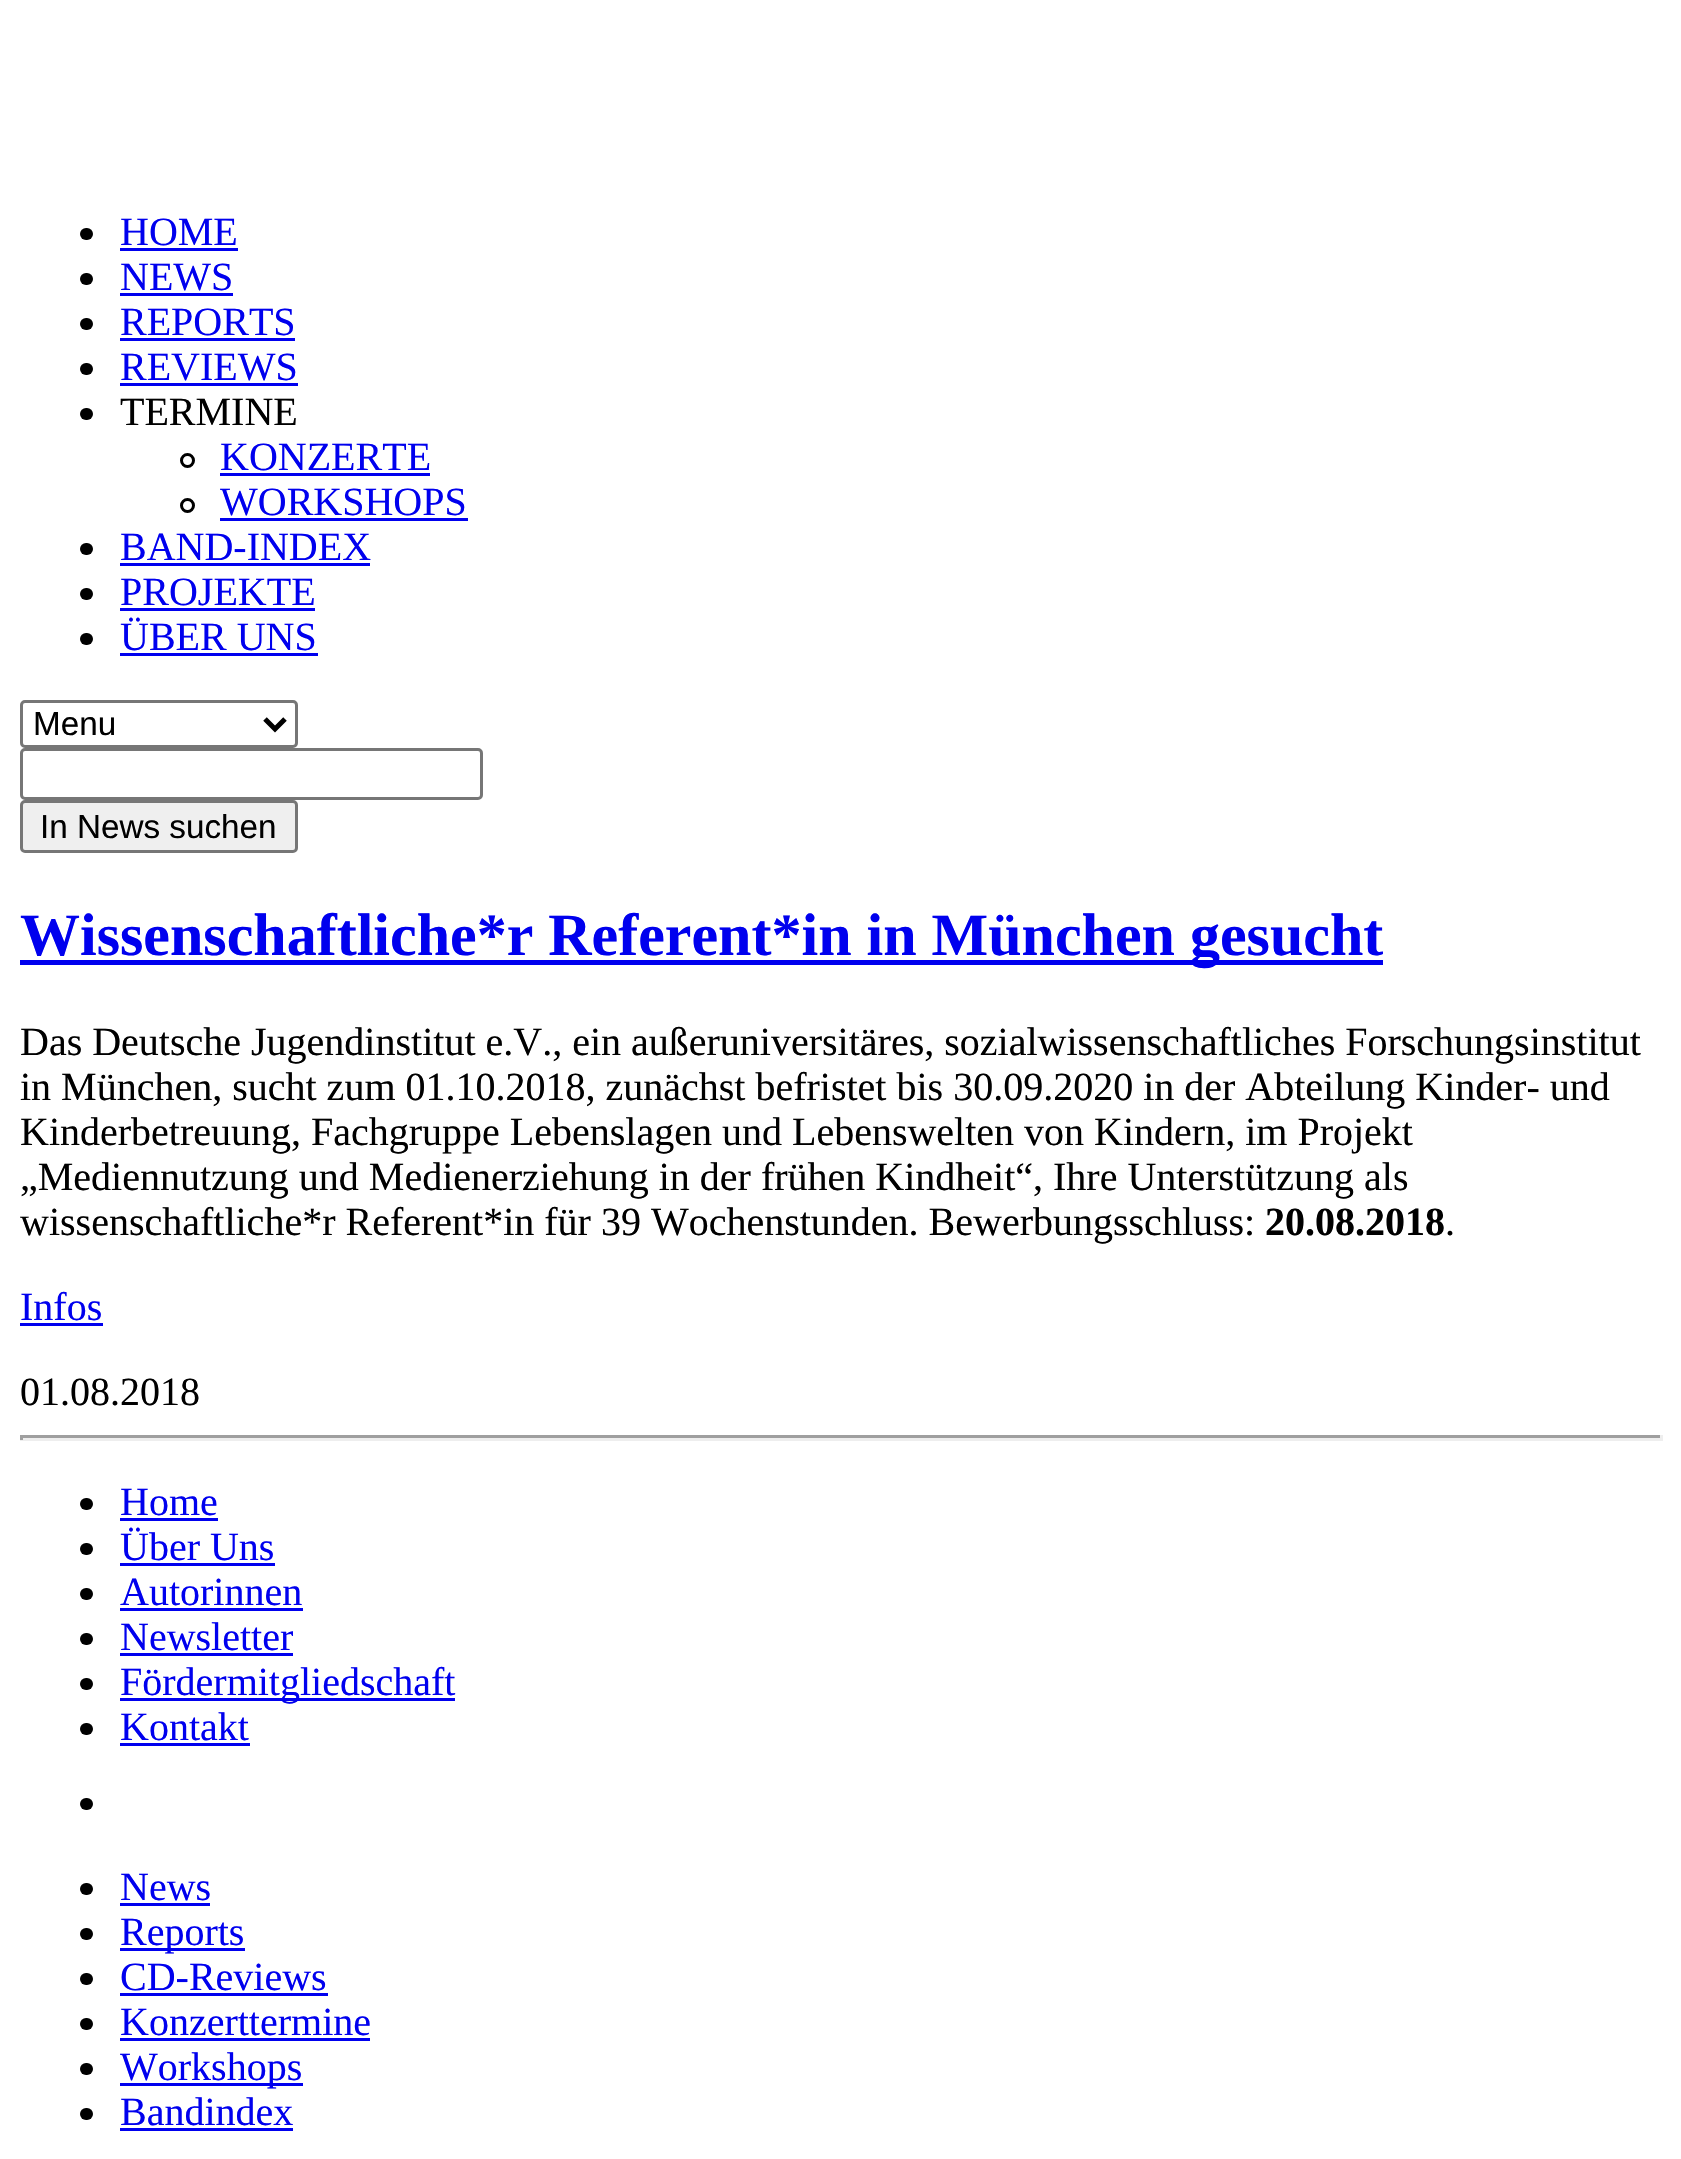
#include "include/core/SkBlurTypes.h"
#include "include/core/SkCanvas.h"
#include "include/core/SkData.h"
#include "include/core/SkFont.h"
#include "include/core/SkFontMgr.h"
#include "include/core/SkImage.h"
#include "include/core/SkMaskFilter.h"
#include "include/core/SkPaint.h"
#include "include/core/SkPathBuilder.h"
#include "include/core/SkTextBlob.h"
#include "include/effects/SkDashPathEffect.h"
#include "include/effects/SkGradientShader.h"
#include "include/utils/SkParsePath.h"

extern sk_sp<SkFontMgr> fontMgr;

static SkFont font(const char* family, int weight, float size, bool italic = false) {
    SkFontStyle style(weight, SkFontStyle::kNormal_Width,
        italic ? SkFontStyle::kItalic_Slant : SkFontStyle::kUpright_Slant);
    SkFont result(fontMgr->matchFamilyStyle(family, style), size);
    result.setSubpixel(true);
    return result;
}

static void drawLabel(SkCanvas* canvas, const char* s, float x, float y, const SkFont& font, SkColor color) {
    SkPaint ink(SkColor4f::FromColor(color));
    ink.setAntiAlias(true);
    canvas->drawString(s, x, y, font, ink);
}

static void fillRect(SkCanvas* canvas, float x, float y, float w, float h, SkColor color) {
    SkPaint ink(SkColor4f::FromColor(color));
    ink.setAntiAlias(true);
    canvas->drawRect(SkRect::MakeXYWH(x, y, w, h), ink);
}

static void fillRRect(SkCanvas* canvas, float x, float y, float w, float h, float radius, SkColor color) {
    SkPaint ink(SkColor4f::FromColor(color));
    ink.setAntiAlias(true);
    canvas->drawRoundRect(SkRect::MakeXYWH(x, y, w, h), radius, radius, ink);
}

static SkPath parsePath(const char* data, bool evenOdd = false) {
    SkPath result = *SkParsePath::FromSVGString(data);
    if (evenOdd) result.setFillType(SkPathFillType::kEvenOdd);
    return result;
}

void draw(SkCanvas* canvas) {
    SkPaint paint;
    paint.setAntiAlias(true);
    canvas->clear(0xFFFFFFFF);
    fillRRect(canvas, 80, 228, 13, 12, 6, 0xFF000000);
    SkFont font1 = font("Liberation Serif", 400, 40);
    drawLabel(canvas, "HOME", 120, 245, font1, 0xFF0000EE);
    fillRect(canvas, 120, 248, 118, 3, 0xFF0000EE);
    fillRRect(canvas, 80, 273, 13, 12, 6, 0xFF000000);
    drawLabel(canvas, "NEWS", 120, 290, font1, 0xFF0000EE);
    fillRect(canvas, 120, 293, 113, 3, 0xFF0000EE);
    fillRRect(canvas, 80, 318, 13, 12, 6, 0xFF000000);
    drawLabel(canvas, "REPORTS", 120, 335, font1, 0xFF0000EE);
    fillRect(canvas, 120, 338, 175, 3, 0xFF0000EE);
    fillRRect(canvas, 80, 363, 13, 12, 6, 0xFF000000);
    drawLabel(canvas, "REVIEWS", 120, 380, font1, 0xFF0000EE);
    fillRect(canvas, 120, 383, 178, 3, 0xFF0000EE);
    fillRRect(canvas, 80, 408, 13, 12, 6, 0xFF000000);
    drawLabel(canvas, "TERMINE", 120, 425, font1, 0xFF000000);
    paint.setStroke(true);
    paint.setStrokeWidth(3);
    paint.setColor(0xFF000000);
    canvas->drawCircle(187.5f, 460.5f, 6, paint);
    drawLabel(canvas, "KONZERTE", 220, 470, font1, 0xFF0000EE);
    fillRect(canvas, 220, 473, 210, 3, 0xFF0000EE);
    canvas->drawCircle(187.5f, 505.5f, 6, paint);
    drawLabel(canvas, "WORKSHOPS", 220, 515, font1, 0xFF0000EE);
    fillRect(canvas, 220, 518, 248, 3, 0xFF0000EE);
    fillRRect(canvas, 80, 543, 13, 12, 6, 0xFF000000);
    drawLabel(canvas, "BAND-INDEX", 120, 560, font1, 0xFF0000EE);
    fillRect(canvas, 120, 563, 250, 3, 0xFF0000EE);
    fillRRect(canvas, 80, 588, 13, 12, 6, 0xFF000000);
    drawLabel(canvas, "PROJEKTE", 120, 605, font1, 0xFF0000EE);
    fillRect(canvas, 120, 608, 195, 3, 0xFF0000EE);
    fillRRect(canvas, 80, 633, 13, 12, 6, 0xFF000000);
    drawLabel(canvas, "ÜBER UNS", 120, 650, font1, 0xFF0000EE);
    fillRect(canvas, 120, 653, 198, 3, 0xFF0000EE);
    paint.setColor(0xFF767676);
    canvas->drawRoundRect(SkRect::MakeXYWH(21.5f, 701.5f, 275, 45), 3.5f, 3.5f, paint);
    paint.setStrokeWidth(5);
    paint.setColor(0xFF000000);
    canvas->drawPath(parsePath("M265 719L275 729L285 719"), paint);
    SkFont font2 = font("Liberation Sans", 400, 33.25f);
    drawLabel(canvas, "Menu", 33, 735, font2, 0xFF000000);
    paint.setStrokeWidth(3);
    paint.setColor(0xFF767676);
    canvas->drawRoundRect(SkRect::MakeXYWH(21.5f, 749.5f, 460, 49), 3.5f, 3.5f, paint);
    paint.setStroke(false);
    paint.setColor(0xFFEFEFEF);
    canvas->drawRoundRect(SkRect::MakeXYWH(21.5f, 801.5f, 275, 50), 3.5f, 3.5f, paint);
    paint.setStroke(true);
    paint.setColor(0xFF767676);
    canvas->drawRoundRect(SkRect::MakeXYWH(21.5f, 801.5f, 275, 50), 3.5f, 3.5f, paint);
    drawLabel(canvas, "In News suchen", 40, 838, font2, 0xFF000000);
    fillRect(canvas, 20, 960, 1363, 5, 0xFF0000EE);
    SkFont font3 = font("Liberation Serif", 700, 60);
    drawLabel(canvas, "Wissenschaftliche*r Referent*in in München gesucht", 20, 955, font3, 0xFF0000EE);
    drawLabel(canvas, "Das Deutsche Jugendinstitut e.V., ein außeruniversitäres, sozialwissenschaftliches Forschungsinstitut", 20, 1055, font1, 0xFF000000);
    drawLabel(canvas, "in München, sucht zum 01.10.2018, zunächst befristet bis 30.09.2020 in der Abteilung Kinder- und", 20, 1100, font1, 0xFF000000);
    drawLabel(canvas, "Kinderbetreuung, Fachgruppe Lebenslagen und Lebenswelten von Kindern, im Projekt", 20, 1145, font1, 0xFF000000);
    drawLabel(canvas, "„Mediennutzung und Medienerziehung in der frühen Kindheit“, Ihre Unterstützung als", 20, 1190, font1, 0xFF000000);
    drawLabel(canvas, "wissenschaftliche*r Referent*in für 39 Wochenstunden. Bewerbungsschluss:", 20, 1235, font1, 0xFF000000);
    SkFont font4 = font("Liberation Serif", 700, 40);
    drawLabel(canvas, "20.08.2018", 1265, 1235, font4, 0xFF000000);
    drawLabel(canvas, ".", 1445, 1235, font1, 0xFF000000);
    drawLabel(canvas, "Infos", 20, 1320, font1, 0xFF0000EE);
    fillRect(canvas, 20, 1323, 83, 3, 0xFF0000EE);
    drawLabel(canvas, "01.08.2018", 20, 1405, font1, 0xFF000000);
    fillRect(canvas, 20, 1435, 1643, 3, 0xFF9F9F9F);
    fillRect(canvas, 1660, 1435, 3, 5, 0xFFEEEEEE);
    fillRect(canvas, 20, 1438, 1643, 3, 0xFFEEEEEE);
    fillRect(canvas, 20, 1435, 3, 5, 0xFF9F9F9F);
    fillRRect(canvas, 80, 1498, 13, 12, 6, 0xFF000000);
    drawLabel(canvas, "Home", 120, 1515, font1, 0xFF0000EE);
    fillRect(canvas, 120, 1518, 98, 3, 0xFF0000EE);
    fillRRect(canvas, 80, 1543, 13, 12, 6, 0xFF000000);
    drawLabel(canvas, "Über Uns", 120, 1560, font1, 0xFF0000EE);
    fillRect(canvas, 120, 1563, 155, 3, 0xFF0000EE);
    fillRRect(canvas, 80, 1588, 13, 12, 6, 0xFF000000);
    drawLabel(canvas, "Autorinnen", 120, 1605, font1, 0xFF0000EE);
    fillRect(canvas, 120, 1608, 183, 3, 0xFF0000EE);
    fillRRect(canvas, 80, 1633, 13, 12, 6, 0xFF000000);
    drawLabel(canvas, "Newsletter", 120, 1650, font1, 0xFF0000EE);
    fillRect(canvas, 120, 1653, 173, 3, 0xFF0000EE);
    fillRRect(canvas, 80, 1678, 13, 12, 6, 0xFF000000);
    fillRect(canvas, 120, 1698, 335, 3, 0xFF0000EE);
    drawLabel(canvas, "Fördermitgliedschaft", 120, 1695, font1, 0xFF0000EE);
    fillRRect(canvas, 80, 1723, 13, 12, 6, 0xFF000000);
    drawLabel(canvas, "Kontakt", 120, 1740, font1, 0xFF0000EE);
    fillRect(canvas, 120, 1743, 130, 3, 0xFF0000EE);
    fillRRect(canvas, 80, 1798, 13, 12, 6, 0xFF000000);
    fillRRect(canvas, 80, 1883, 13, 12, 6, 0xFF000000);
    drawLabel(canvas, "News", 120, 1900, font1, 0xFF0000EE);
    fillRect(canvas, 120, 1903, 90, 3, 0xFF0000EE);
    fillRRect(canvas, 80, 1928, 13, 12, 6, 0xFF000000);
    fillRect(canvas, 120, 1948, 125, 3, 0xFF0000EE);
    drawLabel(canvas, "Reports", 120, 1945, font1, 0xFF0000EE);
    fillRRect(canvas, 80, 1973, 13, 12, 6, 0xFF000000);
    drawLabel(canvas, "CD-Reviews", 120, 1990, font1, 0xFF0000EE);
    fillRect(canvas, 120, 1993, 208, 3, 0xFF0000EE);
    fillRRect(canvas, 80, 2018, 13, 12, 6, 0xFF000000);
    drawLabel(canvas, "Konzerttermine", 120, 2035, font1, 0xFF0000EE);
    fillRect(canvas, 120, 2038, 250, 3, 0xFF0000EE);
    fillRRect(canvas, 80, 2063, 13, 12, 6, 0xFF000000);
    fillRect(canvas, 120, 2083, 183, 3, 0xFF0000EE);
    drawLabel(canvas, "Workshops", 120, 2080, font1, 0xFF0000EE);
    fillRRect(canvas, 80, 2108, 13, 12, 6, 0xFF000000);
    drawLabel(canvas, "Bandindex", 120, 2125, font1, 0xFF0000EE);
    fillRect(canvas, 120, 2128, 173, 3, 0xFF0000EE);
}
